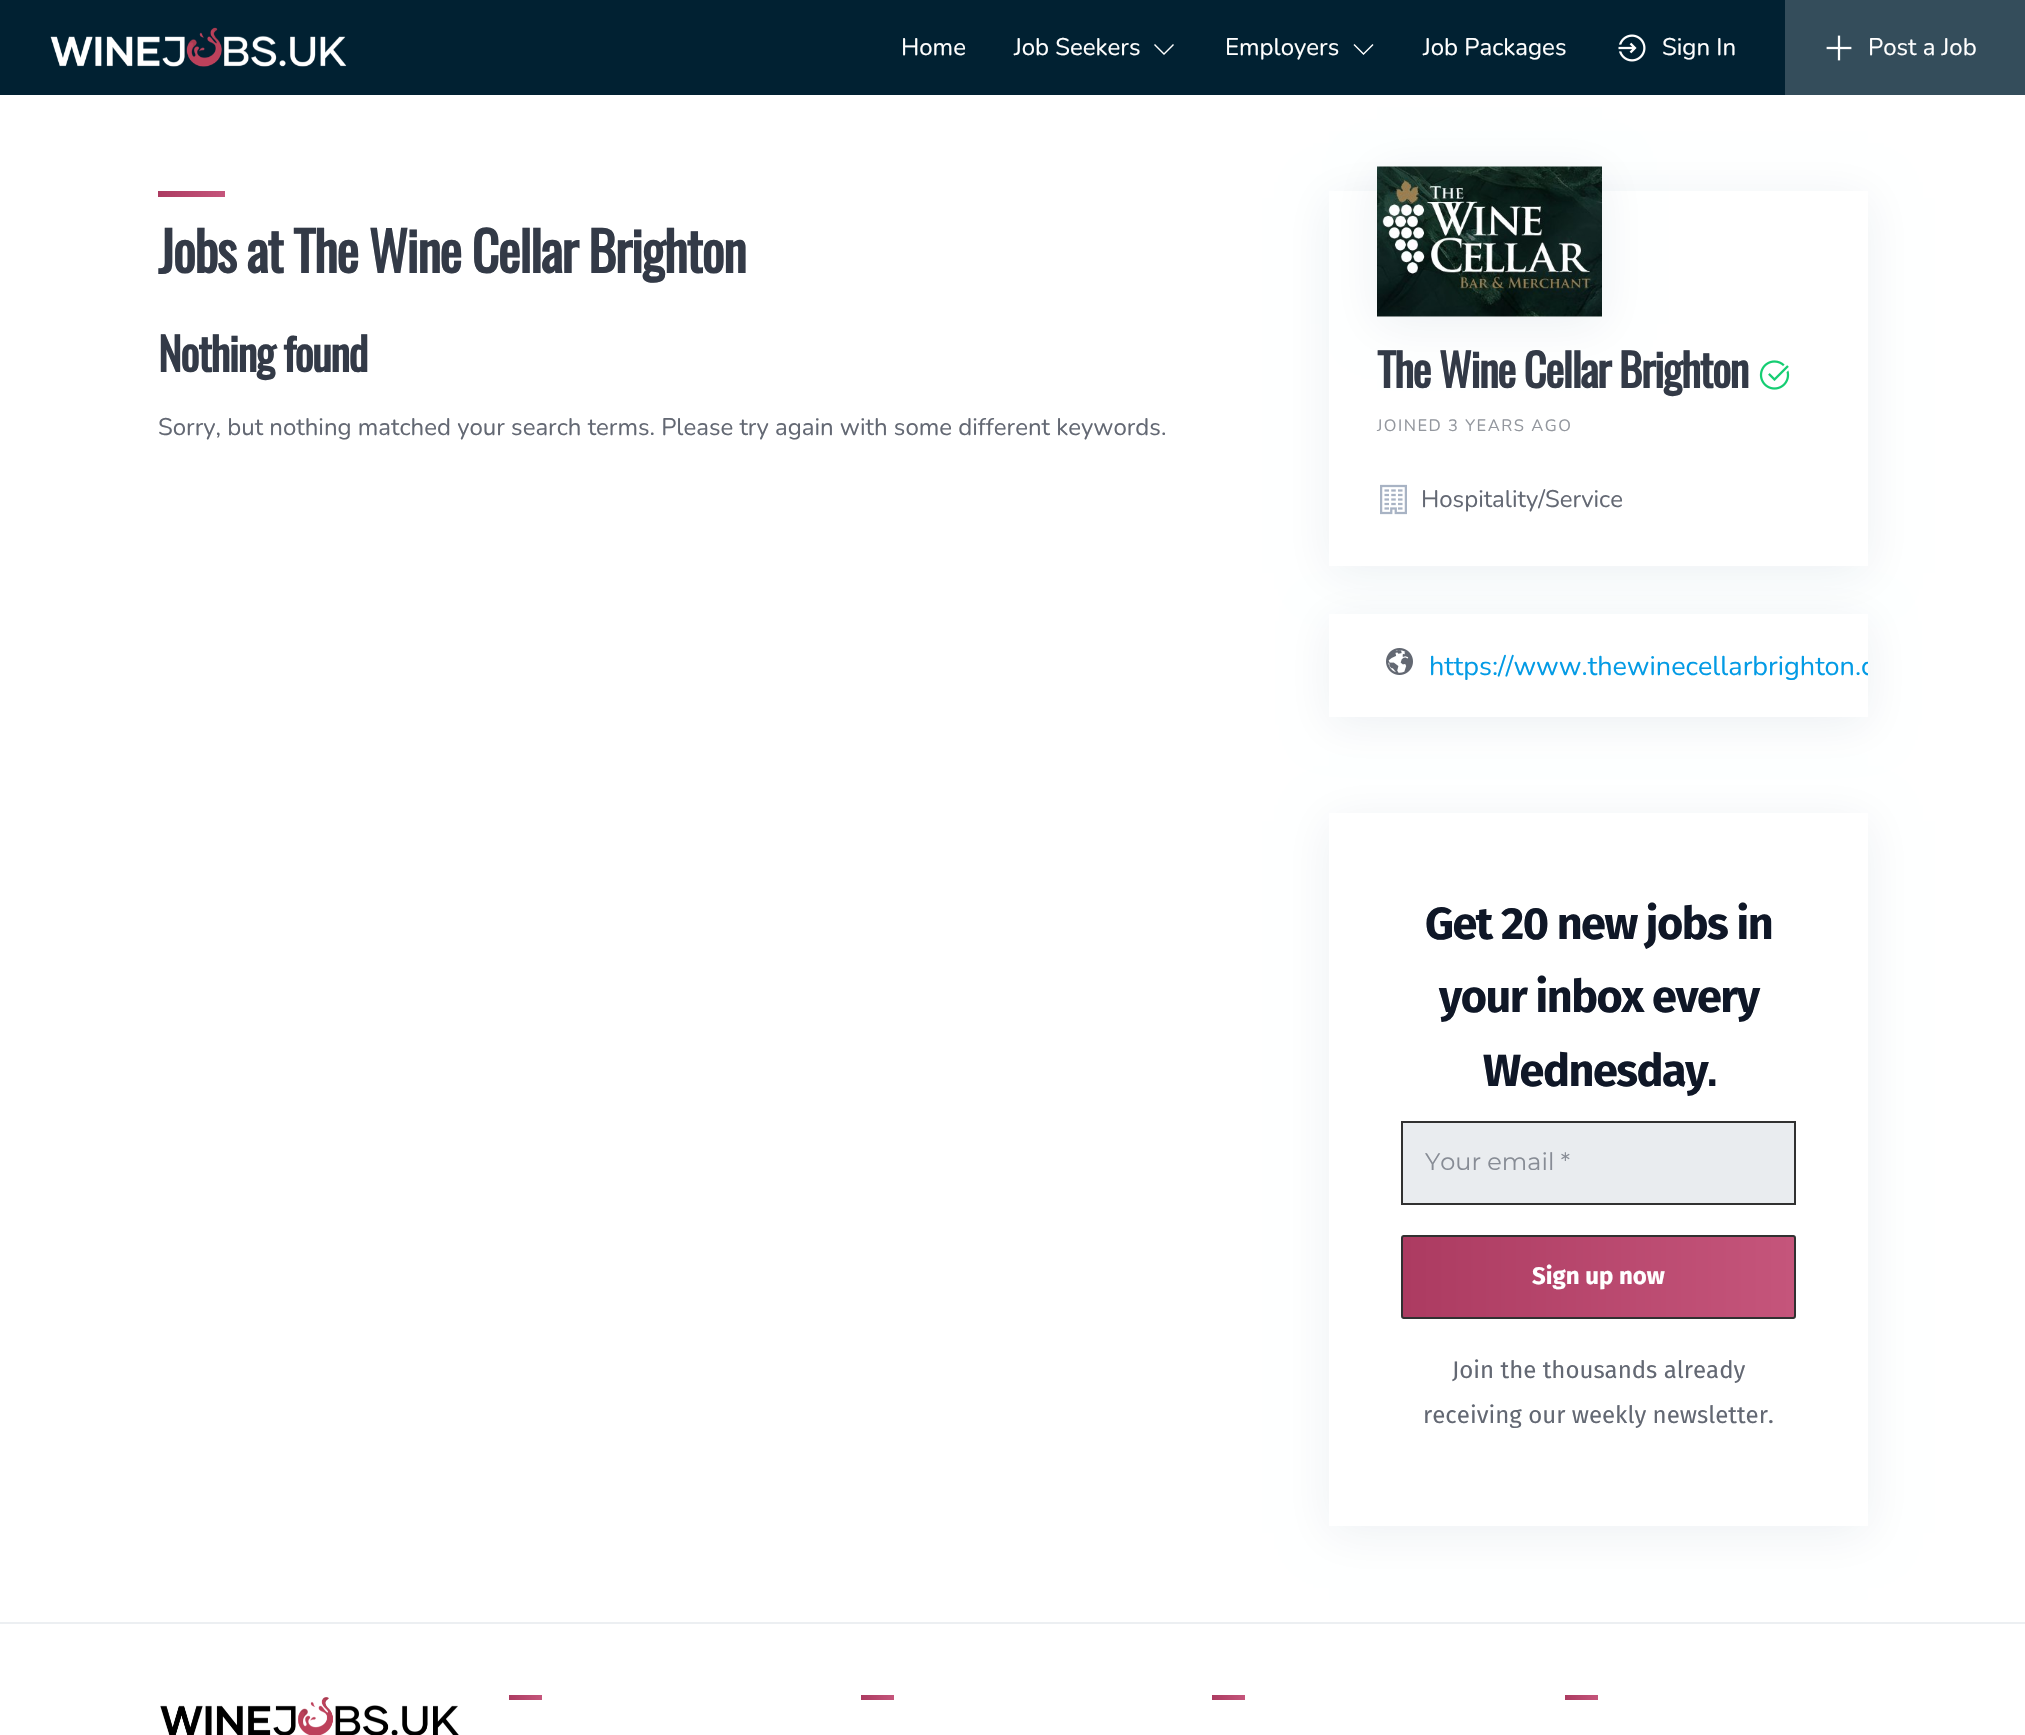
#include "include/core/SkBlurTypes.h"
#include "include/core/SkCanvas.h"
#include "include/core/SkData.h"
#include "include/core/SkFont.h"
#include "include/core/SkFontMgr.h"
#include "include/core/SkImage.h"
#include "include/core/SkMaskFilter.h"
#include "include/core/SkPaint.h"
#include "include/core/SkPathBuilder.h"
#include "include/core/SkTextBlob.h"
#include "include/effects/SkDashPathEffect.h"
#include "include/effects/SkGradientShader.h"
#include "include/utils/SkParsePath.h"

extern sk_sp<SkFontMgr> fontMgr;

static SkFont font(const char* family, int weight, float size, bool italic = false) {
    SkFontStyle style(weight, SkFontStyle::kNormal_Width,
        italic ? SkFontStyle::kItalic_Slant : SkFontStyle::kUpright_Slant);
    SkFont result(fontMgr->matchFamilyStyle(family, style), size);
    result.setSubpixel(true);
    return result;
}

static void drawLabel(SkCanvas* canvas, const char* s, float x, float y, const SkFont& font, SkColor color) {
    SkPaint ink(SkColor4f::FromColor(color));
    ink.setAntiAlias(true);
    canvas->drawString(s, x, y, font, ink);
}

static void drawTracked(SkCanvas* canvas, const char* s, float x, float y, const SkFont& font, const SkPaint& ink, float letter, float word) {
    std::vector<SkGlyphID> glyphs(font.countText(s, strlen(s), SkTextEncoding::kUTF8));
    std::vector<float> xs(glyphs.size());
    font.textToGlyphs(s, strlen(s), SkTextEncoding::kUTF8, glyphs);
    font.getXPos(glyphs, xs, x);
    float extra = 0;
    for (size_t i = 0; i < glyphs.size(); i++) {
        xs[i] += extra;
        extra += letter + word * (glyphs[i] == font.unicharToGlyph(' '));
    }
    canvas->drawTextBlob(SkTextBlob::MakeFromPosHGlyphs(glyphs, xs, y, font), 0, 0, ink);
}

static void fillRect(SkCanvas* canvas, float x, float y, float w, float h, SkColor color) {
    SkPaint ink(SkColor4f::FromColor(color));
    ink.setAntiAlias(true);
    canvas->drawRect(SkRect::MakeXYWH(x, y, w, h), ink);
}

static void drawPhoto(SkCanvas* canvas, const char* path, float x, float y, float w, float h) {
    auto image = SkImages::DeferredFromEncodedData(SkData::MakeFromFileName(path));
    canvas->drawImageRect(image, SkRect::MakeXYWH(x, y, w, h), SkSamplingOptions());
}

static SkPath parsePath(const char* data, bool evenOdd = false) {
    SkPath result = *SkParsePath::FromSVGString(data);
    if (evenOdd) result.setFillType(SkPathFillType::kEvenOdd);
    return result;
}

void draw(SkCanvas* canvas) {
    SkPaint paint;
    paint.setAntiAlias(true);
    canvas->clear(0xFFFFFFFF);
    fillRect(canvas, 0, 0, 1785, 95, 0xFF012132);
    drawPhoto(canvas, "assets/img1.png", 50, 27, 297, 40);
    SkFont font1 = font("Nunito", 400, 24);
    drawLabel(canvas, "Home", 901, 55, font1, 0xFFFFFFFF);
    drawLabel(canvas, "Job Seekers", 1014, 55, font1, 0xFFFFFFFF);
    paint.setColor(0xFFFFFFFF);
    canvas->drawPath(parsePath("M1155 44L1154 45L1164 55L1174 45L1173 44L1164 53Z"), paint);
    drawLabel(canvas, "Employers", 1225, 55, font1, 0xFFFFFFFF);
    canvas->drawPath(parsePath("M1354.5 44L1353.5 45L1363.5 55L1373.5 45L1372.5 44L1363.5 53Z"), paint);
    drawLabel(canvas, "Job Packages", 1423, 55, font1, 0xFFFFFFFF);
    drawPhoto(canvas, "assets/img2.png", 1618, 34, 28, 28);
    drawLabel(canvas, "Sign In", 1662, 55, font1, 0xFFFFFFFF);
    fillRect(canvas, 1785, 0, 240, 95, 0xFF344D5B);
    drawPhoto(canvas, "assets/img3.png", 1826, 35, 26, 26);
    drawLabel(canvas, "Post a Job", 1868, 55, font1, 0xFFFFFFFF);
    {
        const SkColor colors[] = {0xFFAC3B61, 0xFFC5557B};
        const float stops[] = {0, 1};
        const SkPoint ends[] = {{158, 194}, {225, 194}};
        paint.setShader(SkGradientShader::MakeLinear(ends, colors, stops, 2, SkTileMode::kClamp));
        paint.setAlpha(255);
    }
    canvas->drawRect(SkRect::MakeXYWH(158, 191, 67, 6), paint);
    SkFont font2 = font("Oswald", 700, 54);
    paint.setShader(nullptr);
    paint.setColor(0xFF333A47);
    drawTracked(canvas, "Jobs at The Wine Cellar Brighton", 158, 273, font2, paint, -1.5f, 0);
    SkFont font3 = font("Oswald", 700, 45);
    drawTracked(canvas, "Nothing found", 158, 372, font3, paint, -1.5f, 0);
    drawLabel(canvas, "Sorry, but nothing matched your search terms. Please try again with some different keywords.", 158, 435, font1, 0xFF636873);
    paint.setColor(0x12072456);
    paint.setMaskFilter(SkMaskFilter::MakeBlur(kNormal_SkBlurStyle, 22.5f));
    canvas->drawRect(SkRect::MakeXYWH(1329, 198, 539, 375), paint);
    paint.setMaskFilter(nullptr);
    fillRect(canvas, 1329, 191, 539, 375, 0xFFFFFFFF);
    paint.setMaskFilter(SkMaskFilter::MakeBlur(kNormal_SkBlurStyle, 22.5f));
    canvas->drawRect(SkRect::MakeXYWH(1377, 174, 225, 150), paint);
    paint.setMaskFilter(nullptr);
    fillRect(canvas, 1377, 316, 225, 1, 0xFFFFFFFF);
    drawPhoto(canvas, "assets/img4.png", 1377, 166, 225, 151);
    paint.setColor(0xFF333A47);
    drawTracked(canvas, "The Wine Cellar Brighton", 1377, 388, font3, paint, -1.5f, 0);
    drawPhoto(canvas, "assets/img5.png", 1759, 360, 31, 30);
    SkFont font4 = font("Nunito", 400, 16.5f);
    paint.setColor(0xFF93979E);
    drawTracked(canvas, "JOINED 3 YEARS AGO", 1377, 431, font4, paint, 1.5f, 0);
    drawPhoto(canvas, "assets/img6.png", 1380, 484, 27, 31);
    drawLabel(canvas, "Hospitality/Service", 1421, 507, font1, 0xFF636873);
    paint.setColor(0x12072456);
    paint.setMaskFilter(SkMaskFilter::MakeBlur(kNormal_SkBlurStyle, 22.5f));
    canvas->drawRect(SkRect::MakeXYWH(1329, 621, 539, 104), paint);
    paint.setMaskFilter(nullptr);
    fillRect(canvas, 1329, 614, 539, 103, 0xFFFFFFFF);
    drawPhoto(canvas, "assets/img7.png", 1386, 648, 27, 27);
    canvas->save();
    canvas->clipRect(SkRect::MakeXYWH(1329, 614, 539, 103));
    SkFont font5 = font("Nunito", 400, 27);
    drawLabel(canvas, "https://www.thewinecellarbrighton.c", 1429, 675, font5, 0xFF039BE5);
    canvas->restore();
    paint.setMaskFilter(SkMaskFilter::MakeBlur(kNormal_SkBlurStyle, 22.5f));
    canvas->drawRect(SkRect::MakeXYWH(1329, 821, 539, 712), paint);
    paint.setMaskFilter(nullptr);
    fillRect(canvas, 1329, 813, 539, 713, 0xFFFFFFFF);
    SkFont font6 = font("Fira Sans", 700, 45);
    paint.setColor(0xFF0F1727);
    drawTracked(canvas, "Get 20 new jobs in", 1425, 939, font6, paint, -1.5f, 0);
    drawTracked(canvas, "your inbox every", 1439, 1012, font6, paint, -1.5f, 0);
    drawTracked(canvas, "Wednesday", 1483, 1086, font6, paint, -1.5f, 0);
    drawTracked(canvas, ".", 1707, 1086, font3, paint, -1.5f, 0);
    paint.setColor(0xFFE9ECEF);
    canvas->drawRect(SkRect::MakeXYWH(1402, 1122, 393, 82), paint);
    paint.setStroke(true);
    paint.setStrokeWidth(2);
    paint.setColor(0xFF313131);
    canvas->drawRect(SkRect::MakeXYWH(1402, 1122, 393, 82), paint);
    SkFont font7 = font("Montserrat", 400, 24);
    drawLabel(canvas, "Your email *", 1425, 1170, font7, 0xFF878C95);
    canvas->save();
    canvas->clipPath(parsePath("M1404 1235H1793C1794.5 1235 1796 1236.5 1796 1238V1316C1796 1317.5 1794.5 1319 1793 1319H1404C1402.5 1319 1401 1317.5 1401 1316V1238C1401 1236.5 1402.5 1235 1404 1235Z"), true);
    paint.setStroke(false);
    {
        const SkColor colors[] = {0xFFAC3B61, 0xFFC5557B};
        const float stops[] = {0, 1};
        const SkPoint ends[] = {{1403, 1277}, {1794, 1277}};
        paint.setShader(SkGradientShader::MakeLinear(ends, colors, stops, 2, SkTileMode::kClamp));
        paint.setAlpha(255);
    }
    canvas->drawRect(SkRect::MakeXYWH(1403, 1235, 391, 84), paint);
    canvas->restore();
    paint.setStroke(true);
    paint.setShader(nullptr);
    paint.setColor(0xFF313131);
    canvas->drawRoundRect(SkRect::MakeXYWH(1402, 1236, 393, 82), 2, 2, paint);
    SkFont font8 = font("Fira Sans", 700, 24);
    drawLabel(canvas, "Sign up now", 1532, 1284, font8, 0xFFFFFFFF);
    SkFont font9 = font("Fira Sans", 400, 24);
    drawLabel(canvas, "Join the thousands already", 1452, 1378, font9, 0xFF636873);
    drawLabel(canvas, "receiving our weekly newsletter.", 1423, 1423, font9, 0xFF636873);
    fillRect(canvas, 0, 1622, 2025, 2, 0xFFECEFF2);
    drawPhoto(canvas, "assets/img8.png", 160, 1697, 299, 38);
    paint.setStroke(false);
    {
        const SkColor colors[] = {0xFFAC3B61, 0xFFC5557B};
        const float stops[] = {0, 1};
        const SkPoint ends[] = {{509, 1697}, {542, 1697}};
        paint.setShader(SkGradientShader::MakeLinear(ends, colors, stops, 2, SkTileMode::kClamp));
        paint.setAlpha(255);
    }
    canvas->drawRect(SkRect::MakeXYWH(509, 1695, 33, 5), paint);
    {
        const SkColor colors[] = {0xFFAC3B61, 0xFFC5557B};
        const float stops[] = {0, 1};
        const SkPoint ends[] = {{861, 1697}, {894, 1697}};
        paint.setShader(SkGradientShader::MakeLinear(ends, colors, stops, 2, SkTileMode::kClamp));
        paint.setAlpha(255);
    }
    canvas->drawRect(SkRect::MakeXYWH(861, 1695, 33, 5), paint);
    {
        const SkColor colors[] = {0xFFAC3B61, 0xFFC5557B};
        const float stops[] = {0, 1};
        const SkPoint ends[] = {{1212, 1697}, {1245, 1697}};
        paint.setShader(SkGradientShader::MakeLinear(ends, colors, stops, 2, SkTileMode::kClamp));
        paint.setAlpha(255);
    }
    canvas->drawRect(SkRect::MakeXYWH(1212, 1695, 33, 5), paint);
    {
        const SkColor colors[] = {0xFFAC3B61, 0xFFC5557B};
        const float stops[] = {0, 1};
        const SkPoint ends[] = {{1565, 1697}, {1598, 1697}};
        paint.setShader(SkGradientShader::MakeLinear(ends, colors, stops, 2, SkTileMode::kClamp));
        paint.setAlpha(255);
    }
    canvas->drawRect(SkRect::MakeXYWH(1565, 1695, 33, 5), paint);
}
